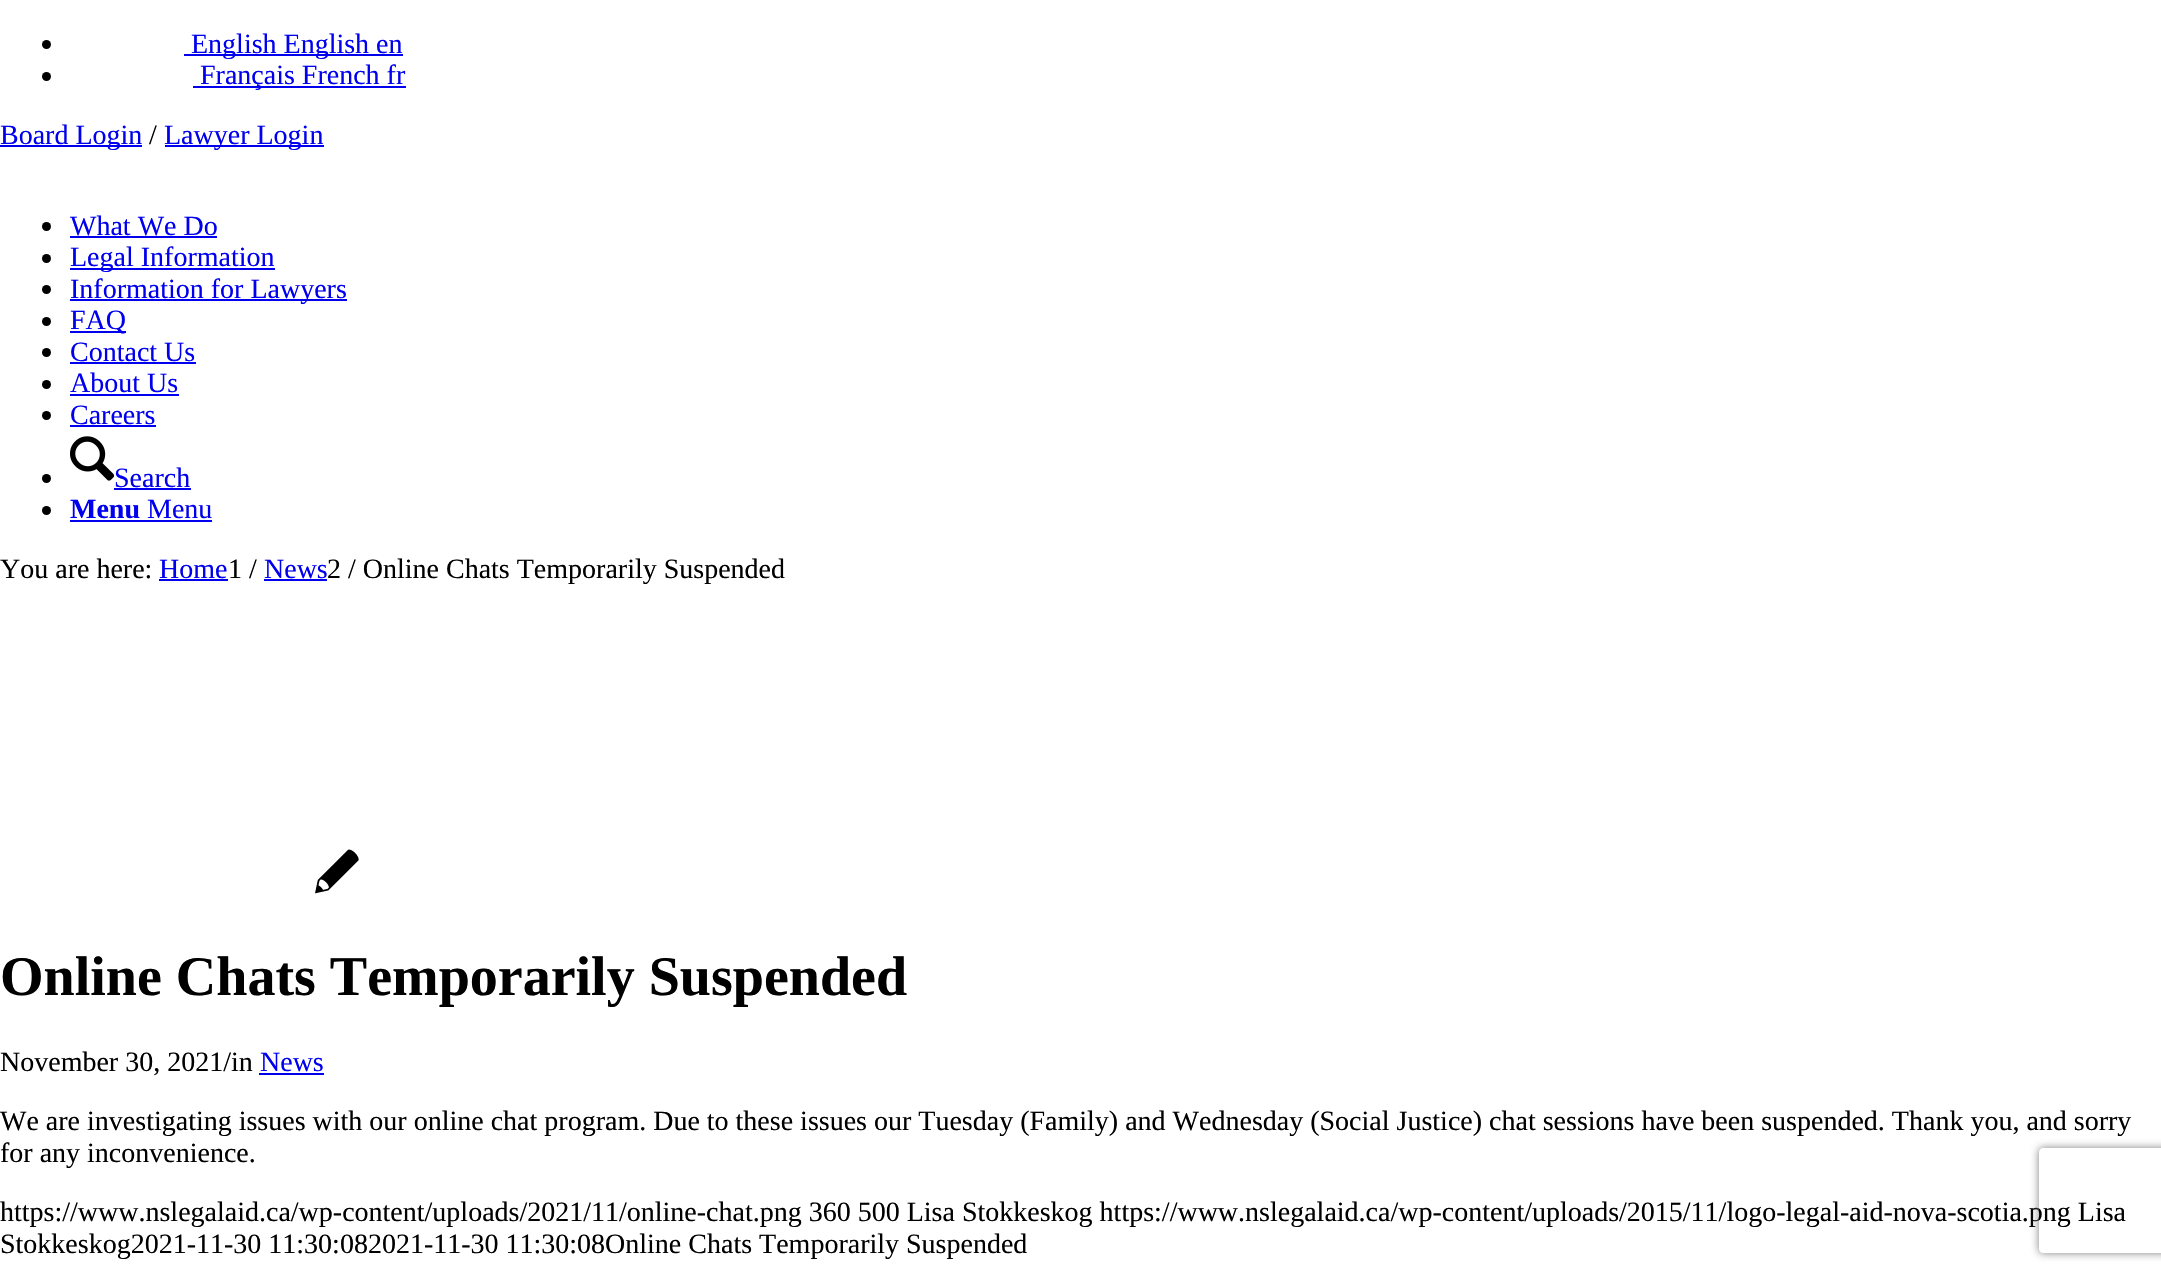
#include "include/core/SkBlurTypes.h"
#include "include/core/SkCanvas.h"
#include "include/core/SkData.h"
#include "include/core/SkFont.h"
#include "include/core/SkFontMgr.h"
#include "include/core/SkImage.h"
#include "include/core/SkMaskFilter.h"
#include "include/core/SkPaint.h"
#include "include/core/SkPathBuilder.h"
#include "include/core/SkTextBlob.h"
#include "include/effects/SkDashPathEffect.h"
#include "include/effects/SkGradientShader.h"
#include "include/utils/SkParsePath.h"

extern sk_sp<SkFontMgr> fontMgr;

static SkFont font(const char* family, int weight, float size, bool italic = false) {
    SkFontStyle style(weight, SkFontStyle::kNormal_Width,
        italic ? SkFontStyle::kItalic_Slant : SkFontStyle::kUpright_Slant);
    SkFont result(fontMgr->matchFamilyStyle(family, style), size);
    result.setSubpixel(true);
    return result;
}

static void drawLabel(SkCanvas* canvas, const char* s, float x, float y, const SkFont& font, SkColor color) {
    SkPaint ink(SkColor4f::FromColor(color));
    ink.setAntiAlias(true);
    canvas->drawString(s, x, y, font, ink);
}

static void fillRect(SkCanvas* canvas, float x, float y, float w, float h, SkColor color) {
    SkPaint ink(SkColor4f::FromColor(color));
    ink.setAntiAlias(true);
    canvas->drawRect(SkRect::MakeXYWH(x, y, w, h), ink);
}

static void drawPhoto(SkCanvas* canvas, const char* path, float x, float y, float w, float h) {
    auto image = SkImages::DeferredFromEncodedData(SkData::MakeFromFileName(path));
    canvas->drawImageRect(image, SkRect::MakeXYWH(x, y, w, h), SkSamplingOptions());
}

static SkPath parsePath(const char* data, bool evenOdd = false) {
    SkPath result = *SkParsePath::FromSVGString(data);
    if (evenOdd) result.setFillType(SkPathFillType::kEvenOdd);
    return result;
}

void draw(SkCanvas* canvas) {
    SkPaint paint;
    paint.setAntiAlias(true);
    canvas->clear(0xFFFFFFFF);
    paint.setColor(0xFF000000);
    canvas->drawCircle(46.5f, 44.5f, 4.5f, paint);
    fillRect(canvas, 184, 54, 219, 2, 0xFF0000EE);
    SkFont font1 = font("Liberation Serif", 400, 28);
    drawLabel(canvas, "English English en", 191, 53, font1, 0xFF0000EE);
    canvas->drawCircle(46.5f, 76.5f, 4.5f, paint);
    fillRect(canvas, 193, 86, 213, 2, 0xFF0000EE);
    drawLabel(canvas, "Français French fr", 200, 84, font1, 0xFF0000EE);
    fillRect(canvas, 0, 145, 142, 2, 0xFF0000EE);
    drawLabel(canvas, "Board Login", 0, 144, font1, 0xFF0000EE);
    drawLabel(canvas, "/", 149, 144, font1, 0xFF000000);
    fillRect(canvas, 165, 145, 159, 2, 0xFF0000EE);
    drawLabel(canvas, "Lawyer Login", 164, 144, font1, 0xFF0000EE);
    canvas->drawCircle(46.5f, 226.5f, 4.5f, paint);
    drawLabel(canvas, "What We Do", 70, 235, font1, 0xFF0000EE);
    fillRect(canvas, 70, 236, 147, 2, 0xFF0000EE);
    canvas->drawCircle(46.5f, 258.5f, 4.5f, paint);
    fillRect(canvas, 70, 268, 205, 2, 0xFF0000EE);
    drawLabel(canvas, "Legal Information", 70, 266, font1, 0xFF0000EE);
    canvas->drawCircle(46.5f, 289.5f, 4.5f, paint);
    fillRect(canvas, 70, 299, 277, 2, 0xFF0000EE);
    drawLabel(canvas, "Information for Lawyers", 70, 298, font1, 0xFF0000EE);
    canvas->drawCircle(46.5f, 321.5f, 4.5f, paint);
    fillRect(canvas, 70, 331, 56, 2, 0xFF0000EE);
    drawLabel(canvas, "FAQ", 70, 329, font1, 0xFF0000EE);
    canvas->drawCircle(46.5f, 352.5f, 4.5f, paint);
    drawLabel(canvas, "Contact Us", 70, 361, font1, 0xFF0000EE);
    fillRect(canvas, 70, 362, 126, 2, 0xFF0000EE);
    canvas->drawCircle(46.5f, 384.5f, 4.5f, paint);
    drawLabel(canvas, "About Us", 70, 392, font1, 0xFF0000EE);
    fillRect(canvas, 70, 394, 109, 2, 0xFF0000EE);
    canvas->drawCircle(46.5f, 415.5f, 4.5f, paint);
    drawLabel(canvas, "Careers", 70, 424, font1, 0xFF0000EE);
    fillRect(canvas, 70, 425, 86, 2, 0xFF0000EE);
    canvas->drawCircle(46.5f, 478.5f, 4.5f, paint);
    drawPhoto(canvas, "assets/img1.png", 70, 436, 44, 45);
    drawLabel(canvas, "Search", 114, 487, font1, 0xFF0000EE);
    fillRect(canvas, 114, 488, 77, 2, 0xFF0000EE);
    canvas->drawCircle(46.5f, 510.5f, 4.5f, paint);
    SkFont font2 = font("Liberation Serif", 700, 28);
    drawLabel(canvas, "Menu", 70, 518, font2, 0xFF0000EE);
    fillRect(canvas, 70, 520, 142, 2, 0xFF0000EE);
    drawLabel(canvas, "Menu", 147, 518, font1, 0xFF0000EE);
    drawLabel(canvas, "You are here:", 0, 578, font1, 0xFF000000);
    drawLabel(canvas, "Home", 159, 578, font1, 0xFF0000EE);
    fillRect(canvas, 159, 579, 69, 2, 0xFF0000EE);
    drawLabel(canvas, "1 /", 228, 578, font1, 0xFF000000);
    drawLabel(canvas, "News", 264, 578, font1, 0xFF0000EE);
    drawLabel(canvas, "2 / Online Chats Temporarily Suspended", 327, 578, font1, 0xFF000000);
    fillRect(canvas, 264, 579, 63, 2, 0xFF0000EE);
    drawPhoto(canvas, "assets/img2.png", 315, 849, 44, 45);
    SkFont font3 = font("Liberation Serif", 700, 56);
    drawLabel(canvas, "Online Chats Temporarily Suspended", 0, 995, font3, 0xFF000000);
    drawLabel(canvas, "November 30, 2021/in", 0, 1071, font1, 0xFF000000);
    drawLabel(canvas, "News", 260, 1071, font1, 0xFF0000EE);
    fillRect(canvas, 259, 1073, 65, 2, 0xFF0000EE);
    drawLabel(canvas, "We are investigating issues with our online chat program. Due to these issues our Tuesday (Family) and Wednesday (Social Justice) chat sessions have been suspended. Thank you, and sorry", 0, 1130, font1, 0xFF000000);
    drawLabel(canvas, "for any inconvenience.", 0, 1162, font1, 0xFF000000);
    drawLabel(canvas, "https://www.nslegalaid.ca/wp-content/uploads/2021/11/online-chat.png 360 500 Lisa Stokkeskog https://www.nslegalaid.ca/wp-content/uploads/2015/11/logo-legal-aid-nova-scotia.png Lisa", 0, 1221, font1, 0xFF000000);
    drawLabel(canvas, "Stokkeskog2021-11-30 11:30:082021-11-30 11:30:08Online Chats Temporarily Suspended", 0, 1253, font1, 0xFF000000);
    canvas->save();
    canvas->clipPath(parsePath("M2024 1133H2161V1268H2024ZM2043 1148H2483C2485 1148 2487 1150 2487 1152V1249C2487 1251 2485 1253 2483 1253H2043C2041 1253 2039 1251 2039 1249V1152C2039 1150 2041 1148 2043 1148Z", true), true);
    paint.setColor(0xFF808080);
    paint.setMaskFilter(SkMaskFilter::MakeBlur(kNormal_SkBlurStyle, 4.5f));
    canvas->drawRoundRect(SkRect::MakeXYWH(2039, 1148, 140, 105), 4, 4, paint);
    paint.setMaskFilter(nullptr);
    canvas->restore();
}
